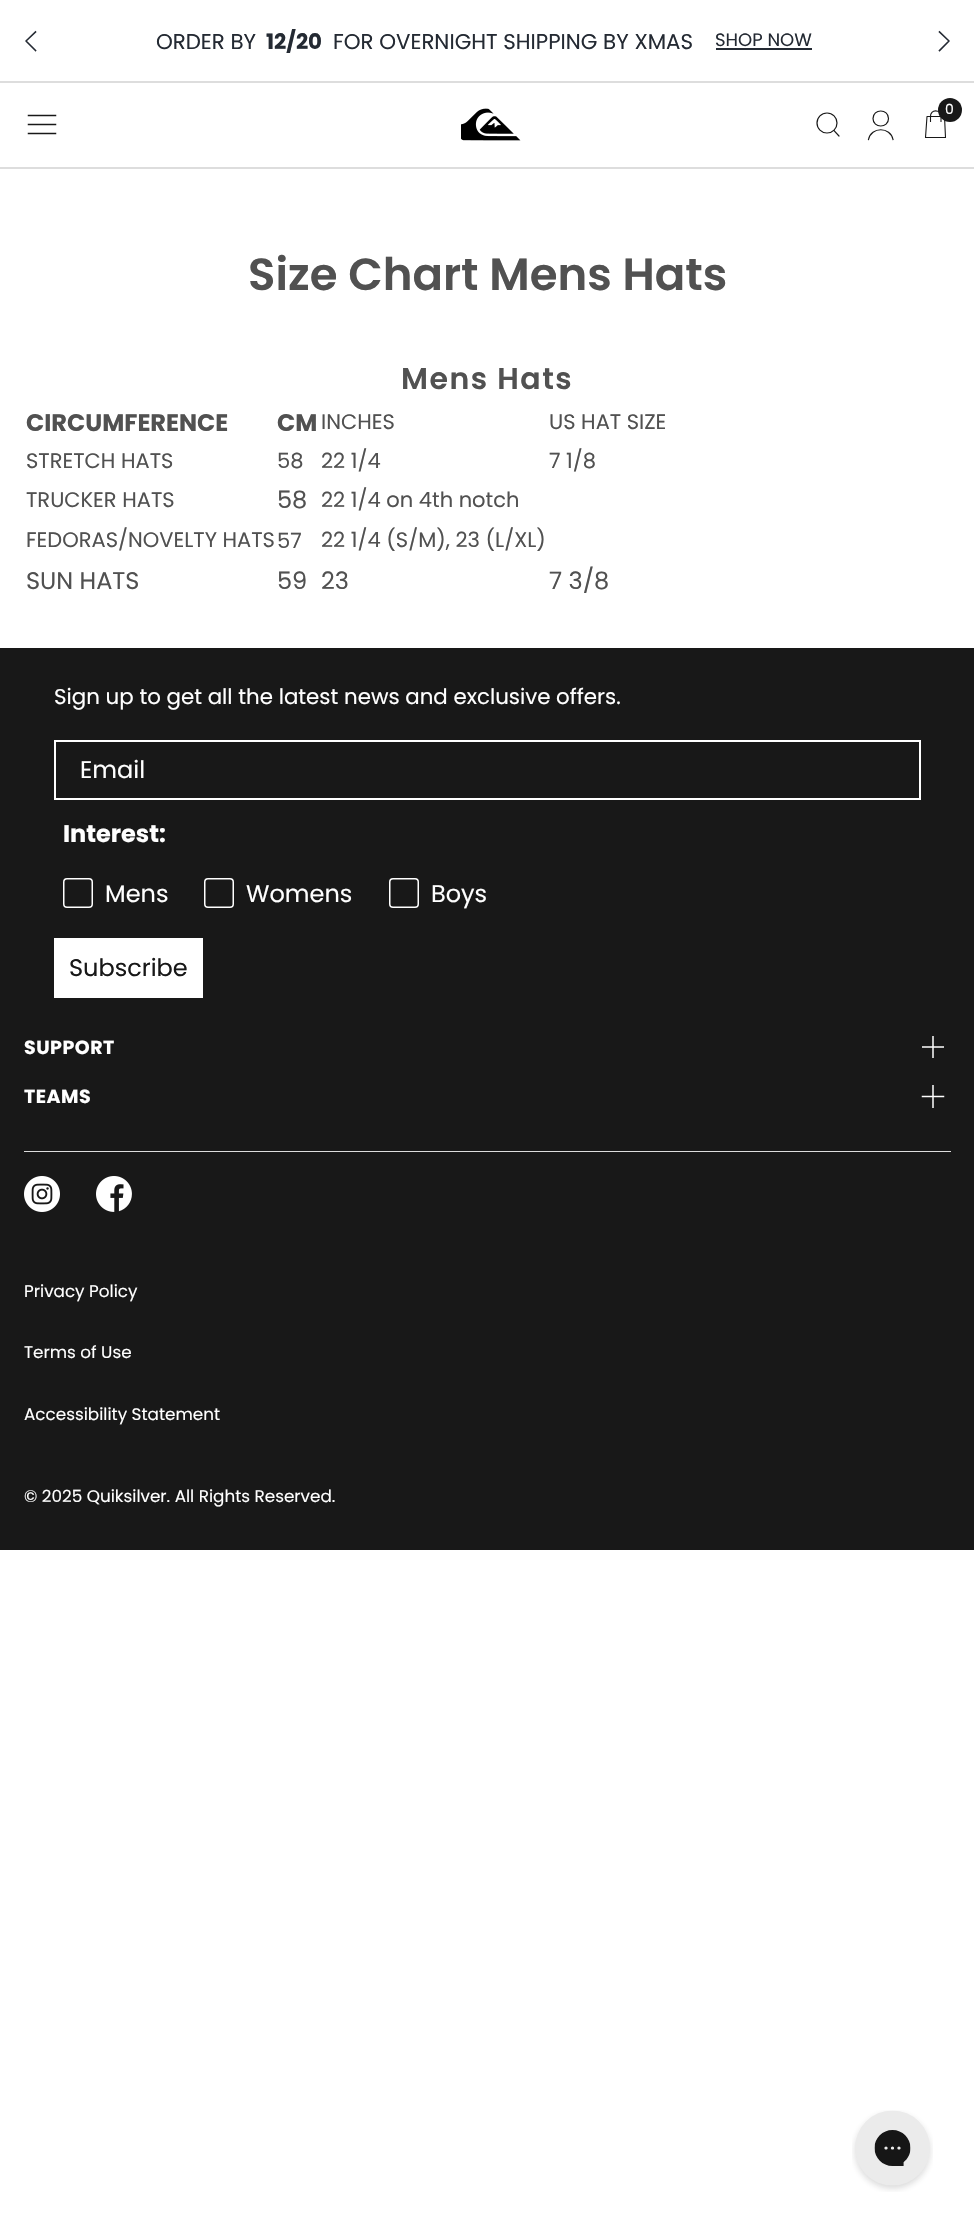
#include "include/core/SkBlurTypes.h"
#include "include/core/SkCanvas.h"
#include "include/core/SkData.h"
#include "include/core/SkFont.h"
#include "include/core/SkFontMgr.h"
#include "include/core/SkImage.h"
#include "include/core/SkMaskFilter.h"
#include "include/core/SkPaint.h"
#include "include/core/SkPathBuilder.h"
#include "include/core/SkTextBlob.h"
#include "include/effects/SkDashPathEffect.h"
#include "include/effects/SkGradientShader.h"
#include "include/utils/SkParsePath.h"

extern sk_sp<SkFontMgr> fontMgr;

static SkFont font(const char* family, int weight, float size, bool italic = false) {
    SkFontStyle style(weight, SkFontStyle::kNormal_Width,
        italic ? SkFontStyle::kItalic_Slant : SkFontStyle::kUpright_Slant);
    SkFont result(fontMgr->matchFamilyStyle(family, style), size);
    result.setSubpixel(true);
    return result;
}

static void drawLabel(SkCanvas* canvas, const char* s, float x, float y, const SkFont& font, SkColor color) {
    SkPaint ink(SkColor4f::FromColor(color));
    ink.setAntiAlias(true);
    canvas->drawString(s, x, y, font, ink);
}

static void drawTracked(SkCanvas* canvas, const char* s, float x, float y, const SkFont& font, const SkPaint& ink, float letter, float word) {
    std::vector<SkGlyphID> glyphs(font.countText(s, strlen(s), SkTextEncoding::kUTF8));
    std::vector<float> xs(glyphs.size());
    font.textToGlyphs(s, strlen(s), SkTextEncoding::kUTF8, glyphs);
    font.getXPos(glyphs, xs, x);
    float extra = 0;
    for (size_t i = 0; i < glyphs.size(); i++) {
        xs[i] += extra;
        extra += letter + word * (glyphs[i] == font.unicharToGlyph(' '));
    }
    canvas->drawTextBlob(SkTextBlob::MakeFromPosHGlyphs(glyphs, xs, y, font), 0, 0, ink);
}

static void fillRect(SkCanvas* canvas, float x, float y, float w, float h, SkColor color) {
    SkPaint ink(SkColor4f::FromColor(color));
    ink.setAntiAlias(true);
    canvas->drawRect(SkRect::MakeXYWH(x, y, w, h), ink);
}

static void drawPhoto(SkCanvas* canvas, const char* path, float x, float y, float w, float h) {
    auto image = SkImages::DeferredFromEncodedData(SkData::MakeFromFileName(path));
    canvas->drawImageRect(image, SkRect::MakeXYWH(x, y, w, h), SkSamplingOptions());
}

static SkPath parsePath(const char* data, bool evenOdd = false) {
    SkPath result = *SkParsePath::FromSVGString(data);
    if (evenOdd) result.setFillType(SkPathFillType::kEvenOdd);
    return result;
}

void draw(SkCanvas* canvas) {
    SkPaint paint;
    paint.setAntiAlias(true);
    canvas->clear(0xFFFFFFFF);
    fillRect(canvas, 0, 81, 974, 2, 0xFFDDDDDD);
    paint.setStroke(true);
    paint.setStrokeWidth(1.6f);
    paint.setStrokeCap(SkPaint::kSquare_Cap);
    paint.setStrokeJoin(SkPaint::kRound_Join);
    paint.setColor(0xFF242A33);
    canvas->drawPath(parsePath("M35.5 50.5L26 41L35.5 32"), paint);
    SkFont font1 = font("Poppins", 400, 21.35f);
    drawLabel(canvas, "ORDER BY", 156, 49, font1, 0xFF242A33);
    canvas->save();
    canvas->clipRect(SkRect::MakeXYWH(62, 29, 852, 24));
    SkFont font2 = font("Poppins", 700, 21.35f);
    drawLabel(canvas, "12/20", 266, 49, font2, 0xFF242A33);
    canvas->restore();
    drawLabel(canvas, "FOR OVERNIGHT SHIPPING BY XMAS", 333, 49, font1, 0xFF242A33);
    SkFont font3 = font("Poppins", 400, 18);
    drawLabel(canvas, "SHOP NOW", 715, 46, font3, 0xFF242A33);
    fillRect(canvas, 716, 48, 96, 2, 0xFF242A33);
    canvas->drawPath(parsePath("M939.5 50.5L949 41L939.5 32"), paint);
    fillRect(canvas, 0, 167, 974, 2, 0xFFDDDDDD);
    paint.setStrokeWidth(1.5f);
    paint.setColor(0xFF181818);
    canvas->drawPath(parsePath("M28.5 124.5H55.5M28.5 115.5H55.5M28.5 133.5H55.5"), paint);
    drawPhoto(canvas, "assets/img1.png", 461, 108, 60, 33);
    paint.setStroke(false);
    canvas->drawCircle(950, 110, 12, paint);
    SkFont font4 = font("Poppins", 400, 14);
    drawLabel(canvas, "0", 945, 114, font4, 0xFFFFFFFF);
    paint.setStroke(true);
    paint.setStrokeWidth(1.1f);
    canvas->drawPath(parsePath("M925.5 137.5L927 116.5H944.5L945.5 137.5ZM930.5 121.5V116.5C930 109 941 109 941 116.5V121.5"), paint);
    paint.setStrokeWidth(1.2f);
    paint.setStrokeCap(SkPaint::kButt_Cap);
    paint.setStrokeJoin(SkPaint::kMiter_Join);
    canvas->drawCircle(827, 123, 10, paint);
    paint.setStrokeCap(SkPaint::kSquare_Cap);
    paint.setStrokeJoin(SkPaint::kRound_Join);
    canvas->drawPath(parsePath("M839 136L834 130.5"), paint);
    canvas->drawPath(parsePath("M893 139.5C890.5 126.5 871 126.5 868.5 139.5M888.5 118.5C888.5 128.5 873 128.5 873 118.5C873 108.5 888.5 108.5 888.5 118.5Z"), paint);
    SkFont font5 = font("Poppins", 600, 45);
    drawLabel(canvas, "Size Chart Mens Hats", 248, 290, font5, 0xFF515151);
    SkFont font6 = font("Poppins", 600, 30);
    paint.setStroke(false);
    paint.setColor(0xFF515151);
    drawTracked(canvas, "Mens Hats", 401, 389, font6, paint, 1.5f, 0);
    SkFont font7 = font("Poppins", 700, 24);
    drawLabel(canvas, "CIRCUMFERENCE", 26, 431, font7, 0xFF515151);
    drawLabel(canvas, "CM", 277, 431, font7, 0xFF515151);
    SkFont font8 = font("Poppins", 400, 21);
    drawLabel(canvas, "INCHES", 321, 429, font8, 0xFF515151);
    drawLabel(canvas, "US HAT SIZE", 549, 429, font8, 0xFF515151);
    drawLabel(canvas, "STRETCH HATS", 26, 468, font8, 0xFF515151);
    drawLabel(canvas, "58", 277, 468, font8, 0xFF515151);
    drawLabel(canvas, "22 1/4", 321, 468, font8, 0xFF515151);
    drawLabel(canvas, "7 1/8", 549, 468, font8, 0xFF515151);
    drawLabel(canvas, "TRUCKER HATS", 26, 507, font8, 0xFF515151);
    SkFont font9 = font("Poppins", 400, 24);
    drawLabel(canvas, "58", 277, 508, font9, 0xFF515151);
    drawLabel(canvas, "22 1/4 on 4th notch", 321, 507, font8, 0xFF515151);
    drawLabel(canvas, "FEDORAS/NOVELTY HATS", 26, 547, font8, 0xFF515151);
    drawLabel(canvas, "57", 277, 548, font8, 0xFF515151);
    drawLabel(canvas, "22 1/4 (S/M), 23 (L/XL)", 321, 547, font8, 0xFF515151);
    drawLabel(canvas, "SUN HATS", 26, 589, font9, 0xFF515151);
    drawLabel(canvas, "59", 277, 589, font9, 0xFF515151);
    drawLabel(canvas, "23", 321, 589, font9, 0xFF515151);
    drawLabel(canvas, "7 3/8", 549, 589, font9, 0xFF515151);
    fillRect(canvas, 0, 648, 974, 902, 0xFF181818);
    fillRect(canvas, 922, 1046, 22, 2, 0xFFC5C5C5);
    fillRect(canvas, 24, 1151, 927, 1, 0xFFDDDDDD);
    drawLabel(canvas, "Sign up to get all the latest news and exclusive offers.", 54, 704, font1, 0xFFFFFFFF);
    paint.setStroke(true);
    paint.setStrokeWidth(2);
    paint.setStrokeCap(SkPaint::kButt_Cap);
    paint.setStrokeJoin(SkPaint::kMiter_Join);
    paint.setColor(0xFFFFFFFF);
    canvas->drawRect(SkRect::MakeXYWH(55, 741, 865, 58), paint);
    drawLabel(canvas, "Email", 80, 778, font9, 0xFFFFFFFF);
    drawLabel(canvas, "Interest:", 63, 842, font7, 0xFFFFFFFF);
    paint.setStrokeWidth(1.5f);
    canvas->drawRoundRect(SkRect::MakeXYWH(63.75f, 878.75f, 28.5f, 28.5f), 3.25f, 3.25f, paint);
    drawLabel(canvas, "Mens", 105, 902, font9, 0xFFFFFFFF);
    canvas->drawRoundRect(SkRect::MakeXYWH(204.75f, 878.75f, 28.5f, 28.5f), 3.25f, 3.25f, paint);
    drawLabel(canvas, "Womens", 246, 902, font9, 0xFFFFFFFF);
    canvas->drawRoundRect(SkRect::MakeXYWH(389.75f, 878.75f, 28.5f, 28.5f), 3.25f, 3.25f, paint);
    drawLabel(canvas, "Boys", 431, 902, font9, 0xFFFFFFFF);
    fillRect(canvas, 54, 938, 149, 60, 0xFFFFFFFF);
    drawLabel(canvas, "Subscribe", 69, 976, font9, 0xFF181818);
    SkFont font10 = font("Poppins", 700, 19);
    paint.setStroke(false);
    drawTracked(canvas, "SUPPORT", 24, 1054, font10, paint, 0.5f, 0);
    fillRect(canvas, 932, 1036, 2, 22, 0xFFC5C5C5);
    fillRect(canvas, 932, 1046, 2, 2, 0xFFF1F1F1);
    drawTracked(canvas, "TEAMS", 24, 1103, font10, paint, 0.5f, 0);
    fillRect(canvas, 932, 1085, 2, 23, 0xFFC5C5C5);
    paint.setStroke(true);
    paint.setStrokeCap(SkPaint::kSquare_Cap);
    paint.setStrokeJoin(SkPaint::kRound_Join);
    canvas->drawPath(parsePath("M922.5 1096.5H943.5"), paint);
    drawPhoto(canvas, "assets/img2.png", 24, 1176, 36, 36);
    drawPhoto(canvas, "assets/img3.png", 96, 1176, 36, 36);
    SkFont font11 = font("Poppins", 400, 16.8f);
    drawLabel(canvas, "Privacy Policy", 24, 1297, font11, 0xFFFFFFFF);
    drawLabel(canvas, "Terms of Use", 24, 1358, font11, 0xFFFFFFFF);
    drawLabel(canvas, "Accessibility Statement", 24, 1420, font11, 0xFFFFFFFF);
    drawLabel(canvas, "© 2025 Quiksilver. All Rights Reserved.", 24, 1502, font11, 0xFFFFFFFF);
    drawPhoto(canvas, "assets/img4.png", 852, 2110, 81, 82);
}
